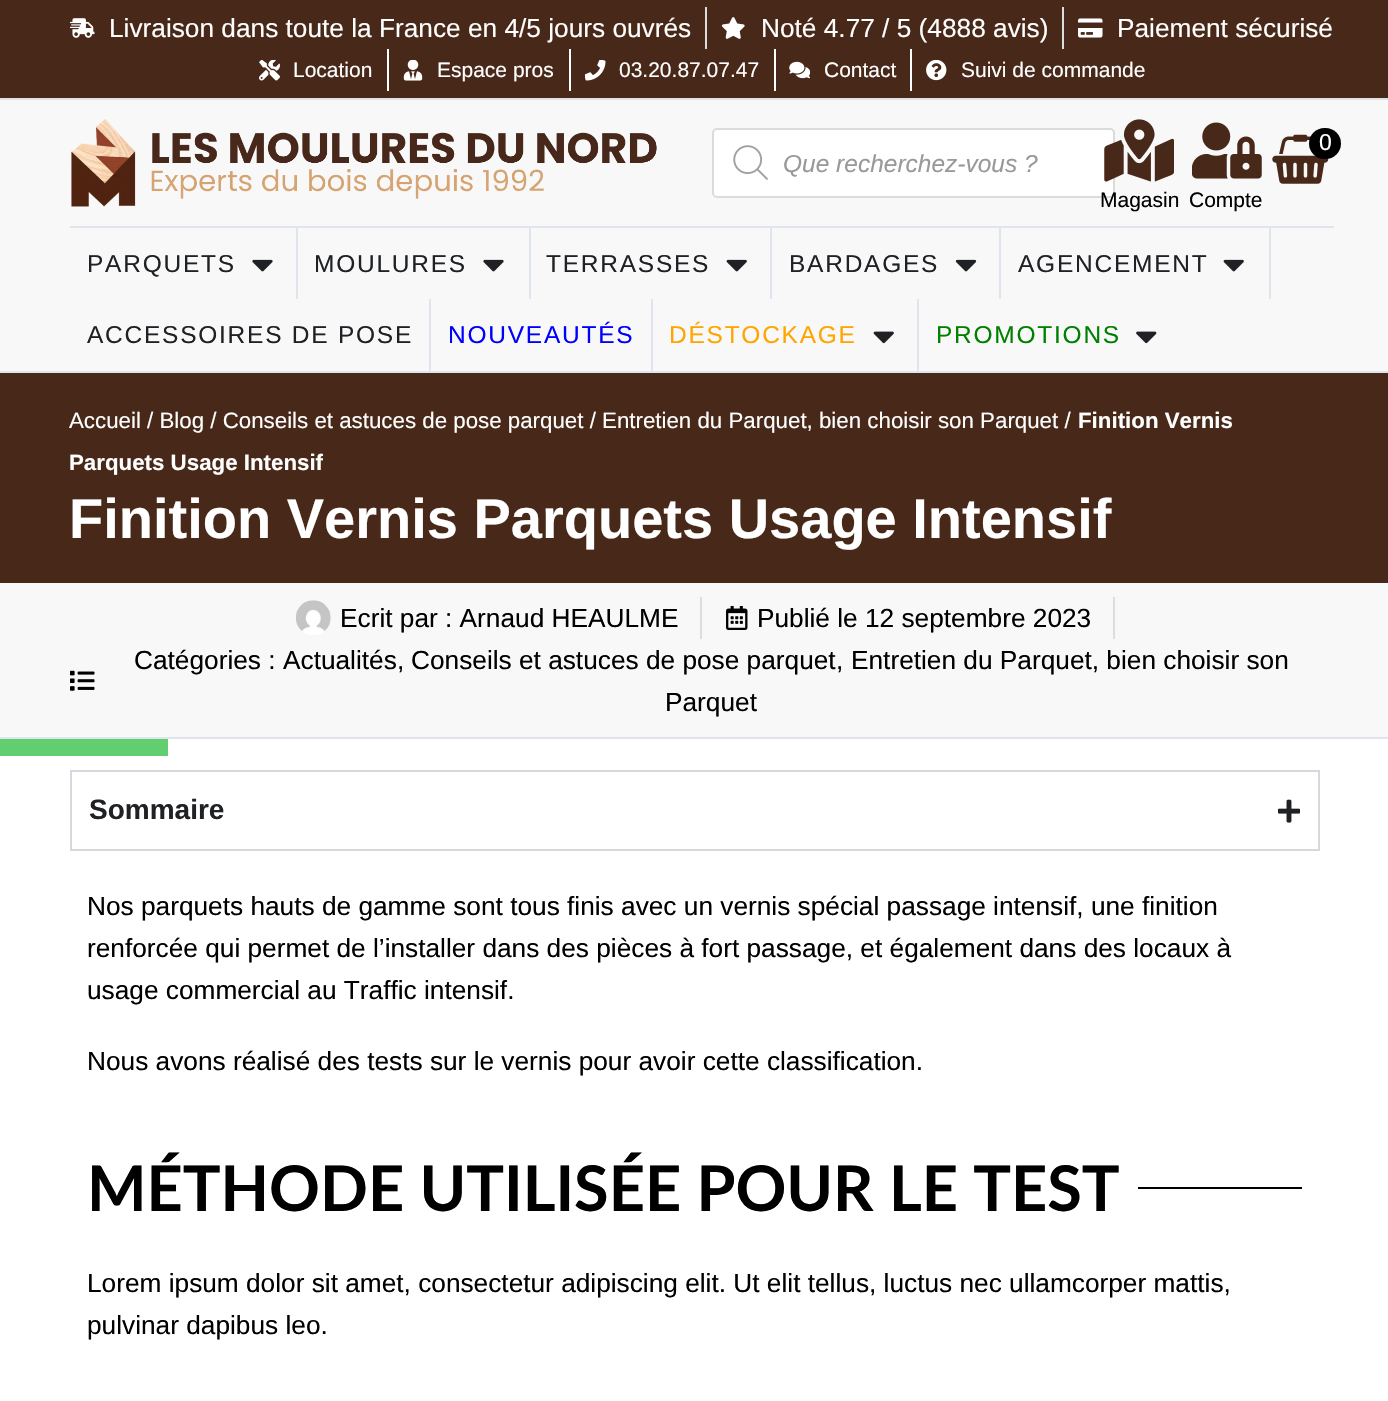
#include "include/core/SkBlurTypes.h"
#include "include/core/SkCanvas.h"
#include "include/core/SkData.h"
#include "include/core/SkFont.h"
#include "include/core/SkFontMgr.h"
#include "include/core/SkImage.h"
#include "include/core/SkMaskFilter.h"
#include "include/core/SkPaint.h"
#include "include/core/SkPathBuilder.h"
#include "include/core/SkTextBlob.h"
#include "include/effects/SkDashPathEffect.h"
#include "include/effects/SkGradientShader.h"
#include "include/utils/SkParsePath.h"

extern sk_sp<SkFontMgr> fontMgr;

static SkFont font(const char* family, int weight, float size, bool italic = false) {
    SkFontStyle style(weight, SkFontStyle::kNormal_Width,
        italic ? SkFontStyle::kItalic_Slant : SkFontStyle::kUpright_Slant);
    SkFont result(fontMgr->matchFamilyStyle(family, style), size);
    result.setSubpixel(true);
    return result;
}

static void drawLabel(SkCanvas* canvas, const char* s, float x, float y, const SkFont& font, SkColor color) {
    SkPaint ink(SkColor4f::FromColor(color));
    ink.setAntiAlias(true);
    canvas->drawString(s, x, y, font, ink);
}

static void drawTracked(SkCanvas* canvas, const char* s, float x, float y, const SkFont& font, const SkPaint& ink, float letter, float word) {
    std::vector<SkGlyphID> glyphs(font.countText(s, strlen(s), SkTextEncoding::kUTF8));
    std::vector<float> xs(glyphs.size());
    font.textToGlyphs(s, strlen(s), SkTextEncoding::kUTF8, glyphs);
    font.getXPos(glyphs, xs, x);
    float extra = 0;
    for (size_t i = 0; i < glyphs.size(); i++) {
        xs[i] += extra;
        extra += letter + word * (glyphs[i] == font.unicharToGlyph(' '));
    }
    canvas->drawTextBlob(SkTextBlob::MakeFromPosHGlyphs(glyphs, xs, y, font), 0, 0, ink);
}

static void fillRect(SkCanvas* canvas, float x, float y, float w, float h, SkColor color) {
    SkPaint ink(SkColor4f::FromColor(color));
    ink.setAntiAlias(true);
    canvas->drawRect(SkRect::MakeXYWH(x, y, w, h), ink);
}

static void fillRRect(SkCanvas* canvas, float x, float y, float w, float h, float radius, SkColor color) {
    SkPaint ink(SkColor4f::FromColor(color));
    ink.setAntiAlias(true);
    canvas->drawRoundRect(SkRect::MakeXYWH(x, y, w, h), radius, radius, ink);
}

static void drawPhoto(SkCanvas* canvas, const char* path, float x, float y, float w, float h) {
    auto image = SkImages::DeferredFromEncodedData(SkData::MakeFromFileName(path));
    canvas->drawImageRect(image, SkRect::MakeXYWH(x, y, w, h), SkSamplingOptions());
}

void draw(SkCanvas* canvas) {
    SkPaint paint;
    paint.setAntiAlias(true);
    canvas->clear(0xFFFFFFFF);
    fillRect(canvas, 0, 0, 1388, 98, 0xFF482819);
    fillRect(canvas, 0, 98, 1388, 2, 0xFFDEE2E6);
    drawPhoto(canvas, "assets/img1.png", 70, 18, 25, 20);
    SkFont font1 = font("Liberation Sans", 400, 26.25f);
    drawLabel(canvas, "Livraison dans toute la France en 4/5 jours ouvrés", 109, 37, font1, 0xFFFFFFFF);
    fillRect(canvas, 705, 7, 2, 42, 0xFFDDDDDD);
    drawPhoto(canvas, "assets/img2.png", 721, 17, 24, 22);
    drawLabel(canvas, "Noté 4.77 / 5 (4888 avis)", 761, 37, font1, 0xFFFFFFFF);
    fillRect(canvas, 1062, 7, 2, 42, 0xFFDDDDDD);
    drawPhoto(canvas, "assets/img3.png", 1078, 18, 25, 20);
    drawLabel(canvas, "Paiement sécurisé", 1117, 37, font1, 0xFFFFFFFF);
    drawPhoto(canvas, "assets/img4.png", 259, 60, 21, 21);
    SkFont font2 = font("Liberation Sans", 400, 21);
    drawLabel(canvas, "Location", 293, 77, font2, 0xFFFFFFFF);
    fillRect(canvas, 387, 49, 2, 42, 0xFFFFFFFF);
    drawPhoto(canvas, "assets/img5.png", 403, 60, 20, 21);
    drawLabel(canvas, "Espace pros", 437, 77, font2, 0xFFFFFFFF);
    fillRect(canvas, 569, 49, 2, 42, 0xFFFFFFFF);
    drawPhoto(canvas, "assets/img6.png", 585, 60, 21, 21);
    drawLabel(canvas, "03.20.87.07.47", 619, 77, font2, 0xFFFFFFFF);
    fillRect(canvas, 774, 49, 2, 42, 0xFFFFFFFF);
    drawPhoto(canvas, "assets/img7.png", 789, 61, 21, 18);
    drawLabel(canvas, "Contact", 824, 77, font2, 0xFFFFFFFF);
    fillRect(canvas, 910, 49, 2, 42, 0xFFFFFFFF);
    drawPhoto(canvas, "assets/img8.png", 926, 60, 21, 21);
    drawLabel(canvas, "Suivi de commande", 961, 77, font2, 0xFFFFFFFF);
    fillRect(canvas, 0, 100, 1388, 271, 0xFFF8F8F8);
    fillRect(canvas, 0, 371, 1388, 2, 0xFFE0E4EC);
    drawPhoto(canvas, "assets/img9.png", 71, 119, 586, 88);
    drawPhoto(canvas, "assets/img10.png", 1272, 134, 57, 50);
    fillRRect(canvas, 1309, 128, 32, 31, 15.5f, 0xFF000000);
    SkFont font3 = font("Liberation Sans", 400, 23);
    drawLabel(canvas, "0", 1319, 150, font3, 0xFFFFFFFF);
    paint.setColor(0xFFFFFFFF);
    canvas->drawRoundRect(SkRect::MakeXYWH(713, 129, 401, 68), 4, 4, paint);
    paint.setStroke(true);
    paint.setStrokeWidth(2);
    paint.setColor(0xFFDBDBDB);
    canvas->drawRoundRect(SkRect::MakeXYWH(713, 129, 401, 68), 4, 4, paint);
    drawPhoto(canvas, "assets/img11.png", 733, 145, 35, 35);
    SkFont font4 = font("Liberation Sans", 400, 24.5f, true);
    drawLabel(canvas, "Que recherchez-vous ?", 783, 172, font4, 0xFF999999);
    drawPhoto(canvas, "assets/img12.png", 1104, 119, 70, 63);
    drawLabel(canvas, "Magasin", 1100, 207, font2, 0xFF000001);
    drawPhoto(canvas, "assets/img13.png", 1192, 122, 70, 57);
    drawLabel(canvas, "Compte", 1189, 207, font2, 0xFF000001);
    fillRect(canvas, 70, 226, 1264, 2, 0xFFE0E4EC);
    SkFont font5 = font("Liberation Sans", 400, 24.5f);
    paint.setStroke(false);
    paint.setColor(0xFF1F2124);
    drawTracked(canvas, "PARQUETS", 87, 272, font5, paint, 1.75f, 0);
    drawPhoto(canvas, "assets/img14.png", 252, 259, 21, 13);
    fillRect(canvas, 296, 228, 2, 71, 0xFFE0E4EC);
    drawTracked(canvas, "MOULURES", 314, 272, font5, paint, 1.75f, 0);
    drawPhoto(canvas, "assets/img14.png", 483, 259, 21, 13);
    fillRect(canvas, 529, 228, 2, 71, 0xFFE0E4EC);
    drawTracked(canvas, "TERRASSES", 546, 272, font5, paint, 1.75f, 0);
    drawPhoto(canvas, "assets/img15.png", 726, 259, 21, 13);
    fillRect(canvas, 770, 228, 2, 71, 0xFFE0E4EC);
    drawTracked(canvas, "BARDAGES", 789, 272, font5, paint, 1.75f, 0);
    drawPhoto(canvas, "assets/img16.png", 955, 259, 22, 13);
    fillRect(canvas, 999, 228, 2, 71, 0xFFE0E4EC);
    drawTracked(canvas, "AGENCEMENT", 1018, 272, font5, paint, 1.75f, 0);
    drawPhoto(canvas, "assets/img15.png", 1223, 259, 21, 13);
    fillRect(canvas, 1269, 228, 2, 71, 0xFFE0E4EC);
    drawTracked(canvas, "ACCESSOIRES DE POSE", 87, 343, font5, paint, 1.75f, 0);
    fillRect(canvas, 429, 299, 2, 72, 0xFFE0E4EC);
    paint.setColor(0xFF0000FF);
    drawTracked(canvas, "NOUVEAUTÉS", 448, 343, font5, paint, 1.75f, 0);
    fillRect(canvas, 651, 299, 2, 72, 0xFFE0E4EC);
    paint.setColor(0xFFFFA500);
    drawTracked(canvas, "DÉSTOCKAGE", 669, 343, font5, paint, 1.75f, 0);
    drawPhoto(canvas, "assets/img17.png", 873, 331, 21, 13);
    fillRect(canvas, 917, 299, 2, 72, 0xFFE0E4EC);
    paint.setColor(0xFF008000);
    drawTracked(canvas, "PROMOTIONS", 936, 343, font5, paint, 1.75f, 0);
    drawPhoto(canvas, "assets/img18.png", 1136, 331, 21, 13);
    fillRect(canvas, 0, 373, 1388, 210, 0xFF482819);
    SkFont font6 = font("Liberation Sans", 400, 22.3f);
    drawLabel(canvas, "Accueil / Blog / Conseils et astuces de pose parquet / Entretien du Parquet, bien choisir son Parquet /", 69, 428, font6, 0xFFFFFFFF);
    SkFont font7 = font("Liberation Sans", 700, 22.3f);
    drawLabel(canvas, "Finition Vernis", 1078, 428, font7, 0xFFFFFFFF);
    drawLabel(canvas, "Parquets Usage Intensif", 69, 470, font7, 0xFFFFFFFF);
    SkFont font8 = font("Liberation Sans", 700, 56);
    drawLabel(canvas, "Finition Vernis Parquets Usage Intensif", 69, 538, font8, 0xFFFFFFFF);
    fillRect(canvas, 0, 583, 1388, 154, 0xFFF8F8F8);
    fillRect(canvas, 0, 737, 1388, 2, 0xFFE0E4EC);
    drawPhoto(canvas, "assets/img19.png", 296, 600, 35, 35);
    drawLabel(canvas, "Ecrit par : Arnaud HEAULME", 340, 627, font1, 0xFF000001);
    fillRect(canvas, 700, 597, 2, 42, 0xFFDDDDDD);
    drawPhoto(canvas, "assets/img20.png", 726, 606, 22, 24);
    drawLabel(canvas, "Publié le 12 septembre 2023", 757, 627, font1, 0xFF000001);
    fillRect(canvas, 1113, 597, 2, 42, 0xFFDDDDDD);
    drawPhoto(canvas, "assets/img21.png", 70, 670, 25, 21);
    drawLabel(canvas, "Catégories :", 134, 669, font1, 0xFF000001);
    drawLabel(canvas, "Actualités", 283, 669, font1, 0xFF000001);
    drawLabel(canvas, ",", 397, 669, font1, 0xFF000001);
    drawLabel(canvas, "Conseils et astuces de pose parquet", 411, 669, font1, 0xFF000001);
    drawLabel(canvas, ",", 836, 669, font1, 0xFF000001);
    drawLabel(canvas, "Entretien du Parquet, bien choisir son", 851, 669, font1, 0xFF000001);
    drawLabel(canvas, "Parquet", 665, 711, font1, 0xFF000001);
    fillRect(canvas, 0, 739, 168, 17, 0xFF61CE70);
    paint.setStroke(true);
    paint.setColor(0xFFD5D8DC);
    canvas->drawRect(SkRect::MakeXYWH(71, 771, 1248, 79), paint);
    SkFont font9 = font("Liberation Sans", 700, 28);
    drawLabel(canvas, "Sommaire", 89, 819, font9, 0xFF1F2124);
    drawPhoto(canvas, "assets/img22.png", 1278, 799, 22, 24);
    drawLabel(canvas, "Nos parquets hauts de gamme sont tous finis avec un vernis spécial passage intensif, une finition", 87, 915, font1, 0xFF000001);
    drawLabel(canvas, "renforcée qui permet de l’installer dans des pièces à fort passage, et également dans des locaux à", 87, 957, font1, 0xFF000001);
    drawLabel(canvas, "usage commercial au Traffic intensif.", 87, 999, font1, 0xFF000001);
    drawLabel(canvas, "Nous avons réalisé des tests sur le vernis pour avoir cette classification.", 87, 1070, font1, 0xFF000001);
    SkFont font10 = font("Lato", 700, 63);
    drawLabel(canvas, "MÉTHODE UTILISÉE POUR LE TEST", 87, 1211, font10, 0xFF000001);
    fillRect(canvas, 1138, 1187, 164, 2, 0xFF000000);
    drawLabel(canvas, "Lorem ipsum dolor sit amet, consectetur adipiscing elit. Ut elit tellus, luctus nec ullamcorper mattis,", 87, 1292, font1, 0xFF000001);
    drawLabel(canvas, "pulvinar dapibus leo.", 87, 1334, font1, 0xFF000001);
}
